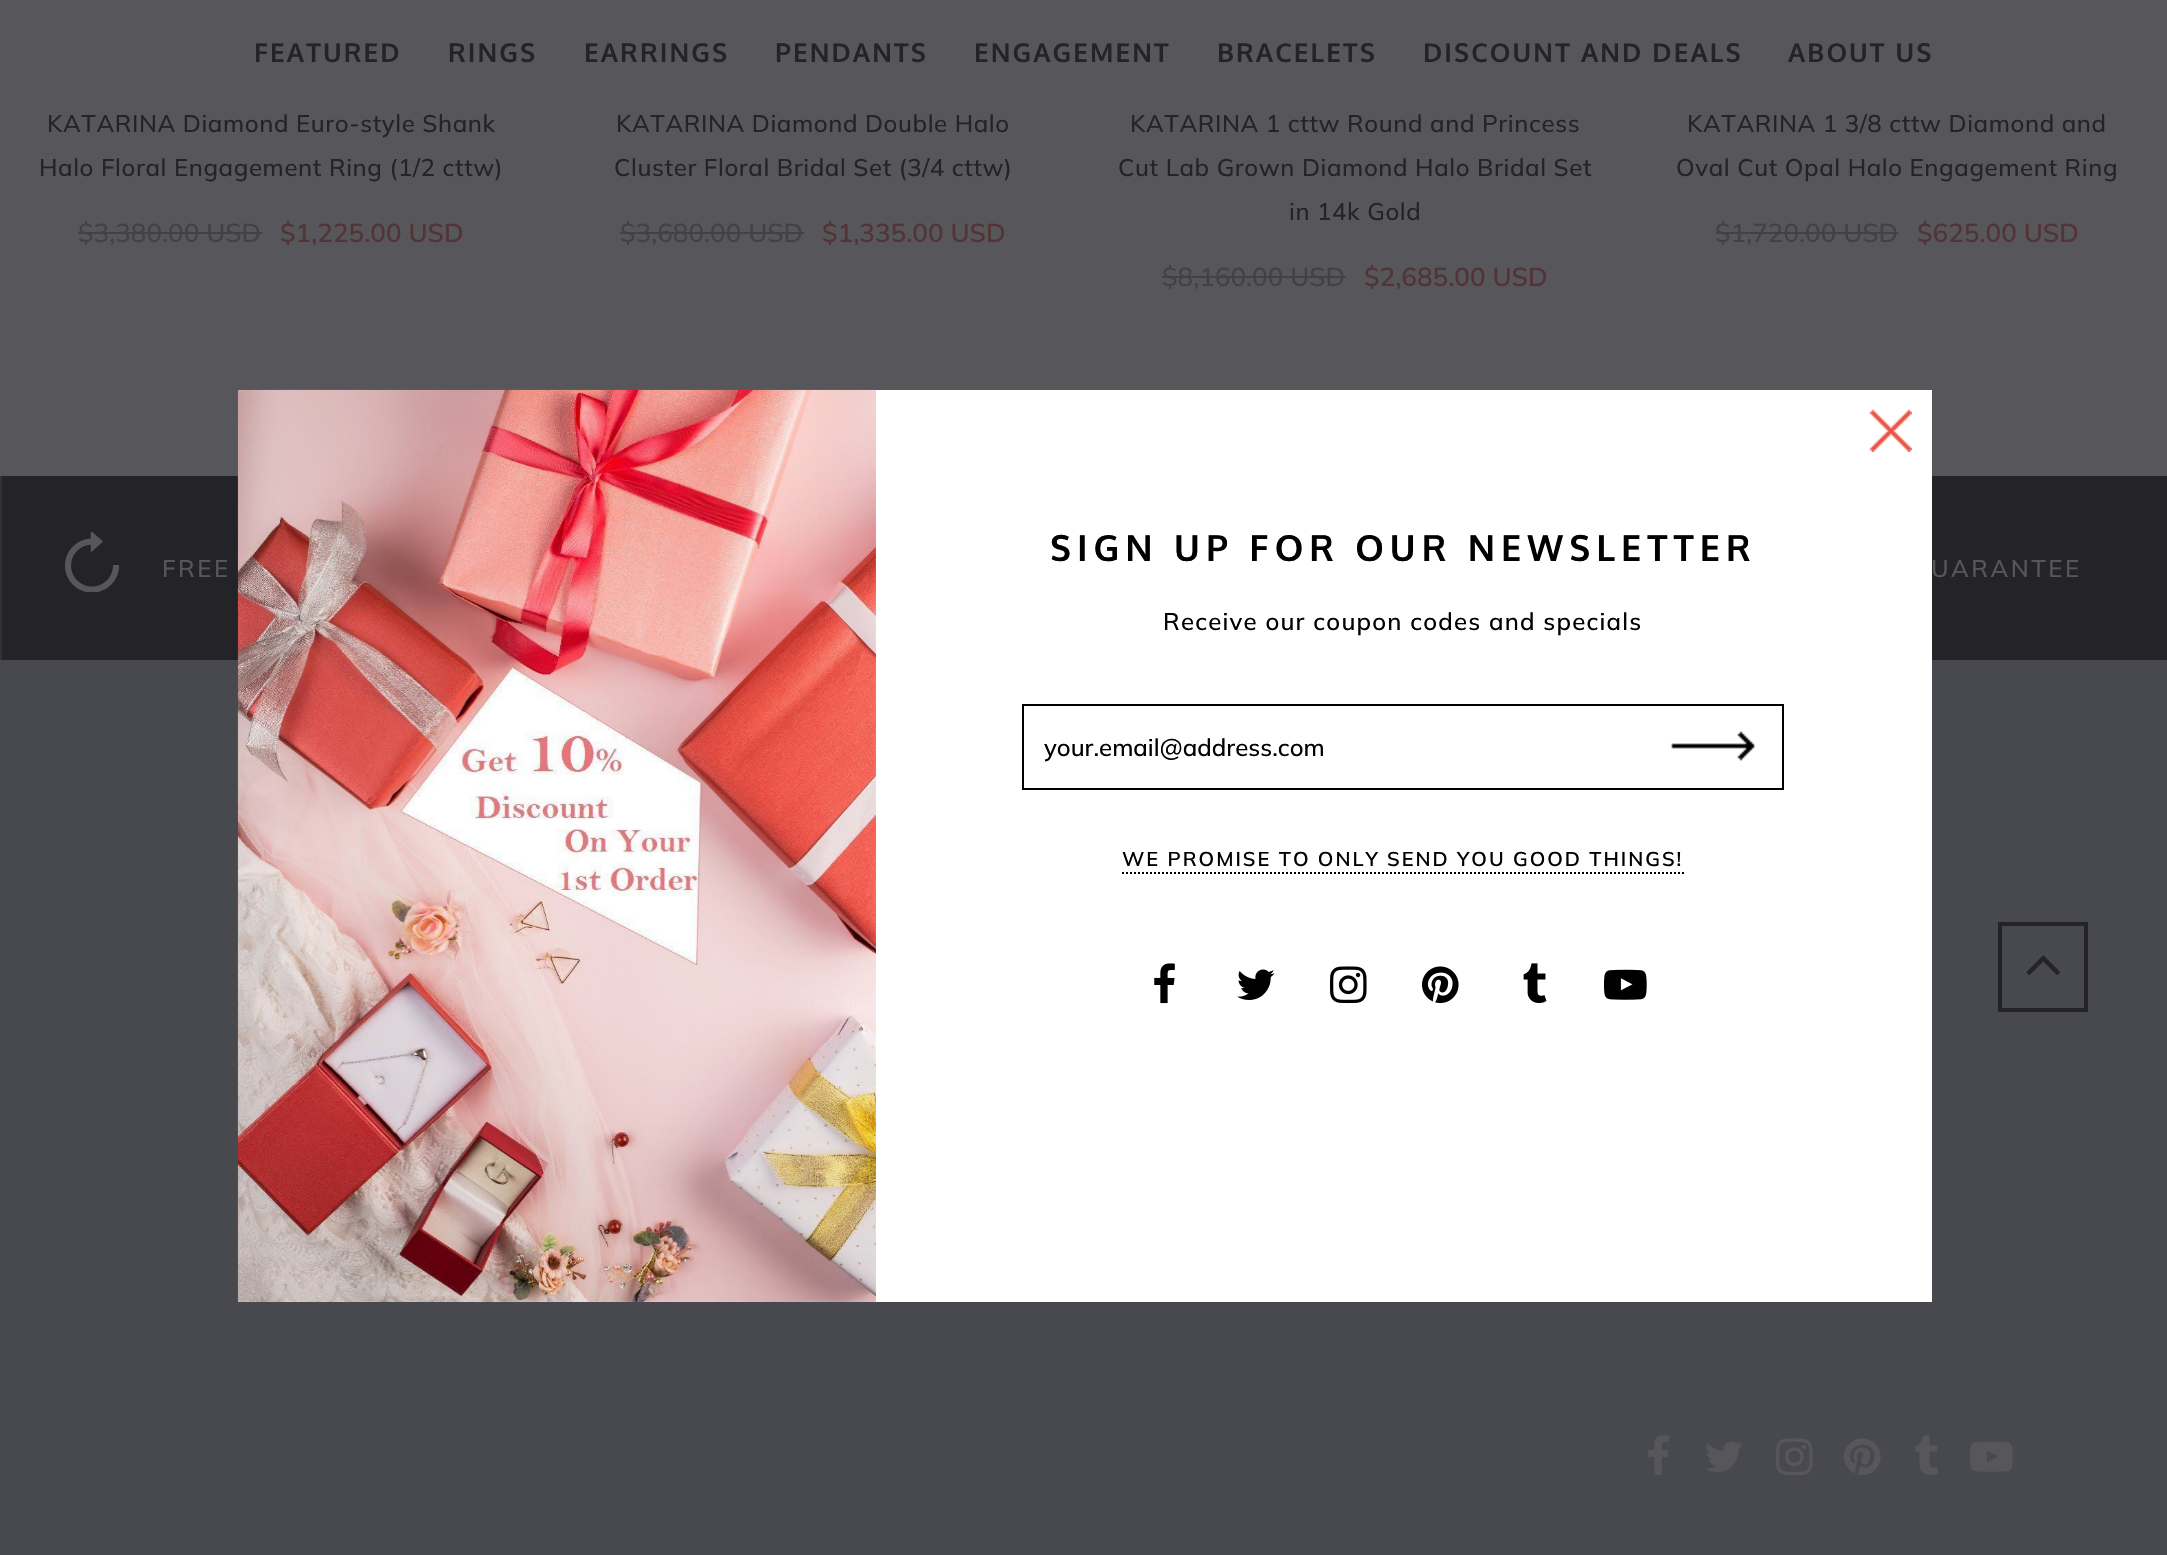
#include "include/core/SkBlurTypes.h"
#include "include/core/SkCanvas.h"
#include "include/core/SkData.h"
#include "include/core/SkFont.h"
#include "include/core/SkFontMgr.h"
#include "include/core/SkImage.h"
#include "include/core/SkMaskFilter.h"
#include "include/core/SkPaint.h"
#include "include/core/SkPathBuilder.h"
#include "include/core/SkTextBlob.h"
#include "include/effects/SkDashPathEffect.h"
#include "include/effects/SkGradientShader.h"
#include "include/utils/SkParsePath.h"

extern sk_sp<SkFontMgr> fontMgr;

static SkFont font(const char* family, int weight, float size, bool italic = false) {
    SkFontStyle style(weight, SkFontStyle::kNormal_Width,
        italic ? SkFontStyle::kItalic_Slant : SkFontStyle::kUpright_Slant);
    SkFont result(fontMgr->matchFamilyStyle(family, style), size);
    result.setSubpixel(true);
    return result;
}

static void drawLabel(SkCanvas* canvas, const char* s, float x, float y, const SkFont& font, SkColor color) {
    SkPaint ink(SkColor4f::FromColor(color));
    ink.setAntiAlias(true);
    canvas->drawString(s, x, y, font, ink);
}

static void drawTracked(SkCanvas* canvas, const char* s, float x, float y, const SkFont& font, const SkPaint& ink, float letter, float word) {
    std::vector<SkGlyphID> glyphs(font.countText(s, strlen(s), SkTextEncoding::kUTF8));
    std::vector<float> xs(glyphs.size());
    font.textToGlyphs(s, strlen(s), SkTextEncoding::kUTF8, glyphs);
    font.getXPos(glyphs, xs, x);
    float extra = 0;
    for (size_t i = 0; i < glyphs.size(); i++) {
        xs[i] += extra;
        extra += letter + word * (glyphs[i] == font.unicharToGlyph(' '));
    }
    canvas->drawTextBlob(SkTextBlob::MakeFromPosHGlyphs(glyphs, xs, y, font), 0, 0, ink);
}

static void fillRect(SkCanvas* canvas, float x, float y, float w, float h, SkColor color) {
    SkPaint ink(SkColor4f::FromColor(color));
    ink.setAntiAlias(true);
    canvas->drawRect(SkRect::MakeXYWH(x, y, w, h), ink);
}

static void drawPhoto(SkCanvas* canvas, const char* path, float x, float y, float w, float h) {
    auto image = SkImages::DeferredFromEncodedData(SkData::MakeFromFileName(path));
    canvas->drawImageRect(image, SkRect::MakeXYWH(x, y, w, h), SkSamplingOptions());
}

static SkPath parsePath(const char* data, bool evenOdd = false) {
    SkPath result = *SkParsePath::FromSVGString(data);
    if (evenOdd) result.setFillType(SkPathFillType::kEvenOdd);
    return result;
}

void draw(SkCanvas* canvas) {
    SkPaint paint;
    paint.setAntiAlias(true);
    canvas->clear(0xFF57575B);
    SkFont font1 = font("Oxygen", 700, 26);
    paint.setColor(0xFF242428);
    drawTracked(canvas, "FEATURED", 254, 62, font1, paint, 2.1f, 0);
    drawTracked(canvas, "RINGS", 448, 62, font1, paint, 2.1f, 0);
    drawTracked(canvas, "EARRINGS", 584, 62, font1, paint, 2.1f, 0);
    drawTracked(canvas, "PENDANTS", 775, 62, font1, paint, 2.1f, 0);
    drawTracked(canvas, "ENGAGEMENT", 974, 62, font1, paint, 2.1f, 0);
    drawTracked(canvas, "BRACELETS", 1217, 62, font1, paint, 2.1f, 0);
    drawTracked(canvas, "DISCOUNT AND DEALS", 1423, 62, font1, paint, 2.1f, 0);
    drawTracked(canvas, "ABOUT US", 1788, 62, font1, paint, 2.1f, 0);
    SkFont font2 = font("Mulish", 500, 24);
    drawTracked(canvas, "KATARINA Diamond Euro-style Shank", 47, 132, font2, paint, 0.6f, 0);
    drawTracked(canvas, "Halo Floral Engagement Ring (1/2 cttw)", 39, 176, font2, paint, 0.6f, 0);
    SkFont font3 = font("Mulish", 500, 26);
    drawLabel(canvas, "$3,380.00 USD", 78, 242, font3, 0xFF424246);
    fillRect(canvas, 78, 232, 184, 2, 0xFF424246);
    SkFont font4 = font("Mulish", 600, 26);
    drawLabel(canvas, "$1,225.00 USD", 280, 242, font4, 0xFF533436);
    drawTracked(canvas, "KATARINA Diamond Double Halo", 616, 132, font2, paint, 0.6f, 0);
    drawTracked(canvas, "Cluster Floral Bridal Set (3/4 cttw)", 614, 176, font2, paint, 0.6f, 0);
    drawLabel(canvas, "$3,680.00 USD", 620, 242, font3, 0xFF424246);
    fillRect(canvas, 620, 232, 184, 2, 0xFF424246);
    drawLabel(canvas, "$1,335.00 USD", 822, 242, font4, 0xFF533436);
    drawTracked(canvas, "KATARINA 1 cttw Round and Princess", 1130, 132, font2, paint, 0.6f, 0);
    drawTracked(canvas, "Cut Lab Grown Diamond Halo Bridal Set", 1118, 176, font2, paint, 0.6f, 0);
    drawTracked(canvas, "in 14k Gold", 1289, 220, font2, paint, 0.6f, 0);
    drawLabel(canvas, "$8,160.00 USD", 1162, 286, font3, 0xFF424246);
    fillRect(canvas, 1162, 276, 184, 2, 0xFF424246);
    drawLabel(canvas, "$2,685.00 USD", 1364, 286, font4, 0xFF533436);
    drawTracked(canvas, "KATARINA 1 3/8 cttw Diamond and", 1687, 132, font2, paint, 0.6f, 0);
    drawTracked(canvas, "Oval Cut Opal Halo Engagement Ring", 1676, 176, font2, paint, 0.6f, 0);
    drawLabel(canvas, "$1,720.00 USD", 1715, 242, font3, 0xFF424246);
    fillRect(canvas, 1716, 232, 182, 2, 0xFF424246);
    drawLabel(canvas, "$625.00 USD", 1917, 242, font4, 0xFF533436);
    fillRect(canvas, 2, 476, 2165, 184, 0xFF242428);
    fillRect(canvas, 0, 660, 2167, 895, 0xFF48494F);
    fillRect(canvas, 238, 390, 1694, 912, 0xFFFFFFFF);
    drawPhoto(canvas, "assets/img1.png", 237, 389, 639, 913);
    drawPhoto(canvas, "assets/img2.png", 1869, 409, 43, 43);
    SkFont font5 = font("Oxygen", 700, 36);
    paint.setColor(0xFF000000);
    drawTracked(canvas, "SIGN UP FOR OUR NEWSLETTER", 1050, 561, font5, paint, 6, 0);
    drawTracked(canvas, "Receive our coupon codes and specials", 1163, 630, font2, paint, 1.2f, 0);
    fillRect(canvas, 1022, 704, 762, 2, 0xFF000000);
    fillRect(canvas, 1022, 788, 620, 2, 0xFF000000);
    fillRect(canvas, 1022, 704, 2, 86, 0xFF000000);
    drawLabel(canvas, "your.email@address.com", 1044, 756, font2, 0xFF000000);
    fillRect(canvas, 1782, 704, 2, 86, 0xFF000000);
    fillRect(canvas, 1642, 788, 142, 2, 0xFF000000);
    drawPhoto(canvas, "assets/img3.png", 1671, 731, 84, 30);
    SkFont font6 = font("Mulish", 600, 20);
    drawTracked(canvas, "WE PROMISE TO ONLY SEND YOU GOOD THINGS!", 1122, 866, font6, paint, 2, 0);
    paint.setStroke(true);
    paint.setStrokeWidth(2);
    paint.setPathEffect(SkDashPathEffect::Make({{2, 2}}, 0));
    canvas->drawPath(parsePath("M1122 873H1684"), paint);
    paint.setPathEffect(nullptr);
    drawPhoto(canvas, "assets/img4.png", 1154, 963, 21, 41);
    drawPhoto(canvas, "assets/img5.png", 1237, 969, 38, 31);
    drawPhoto(canvas, "assets/img6.png", 1330, 966, 37, 38);
    drawPhoto(canvas, "assets/img7.png", 1422, 966, 37, 38);
    drawPhoto(canvas, "assets/img8.png", 1523, 963, 24, 41);
    drawPhoto(canvas, "assets/img9.png", 1604, 969, 43, 31);
    fillRect(canvas, 0, 476, 2, 184, 0xFF333337);
    drawPhoto(canvas, "assets/img10.png", 65, 532, 54, 60);
    paint.setStroke(false);
    paint.setColor(0xFF57575B);
    drawTracked(canvas, "FREE", 162, 577, font2, paint, 2.5f, 0);
    drawTracked(canvas, "UARANTEE", 1931, 577, font2, paint, 2.5f, 0);
    drawPhoto(canvas, "assets/img11.png", 1648, 1435, 21, 41);
    drawPhoto(canvas, "assets/img12.png", 1705, 1441, 38, 31);
    drawPhoto(canvas, "assets/img13.png", 1776, 1438, 37, 38);
    drawPhoto(canvas, "assets/img14.png", 1844, 1438, 37, 37);
    drawPhoto(canvas, "assets/img15.png", 1915, 1435, 24, 40);
    drawPhoto(canvas, "assets/img16.png", 1970, 1441, 43, 31);
    paint.setStroke(true);
    paint.setStrokeWidth(4);
    paint.setColor(0xFF242428);
    canvas->drawRect(SkRect::MakeXYWH(2000, 924, 86, 86), paint);
    drawPhoto(canvas, "assets/img17.png", 2026, 955, 34, 20);
}
